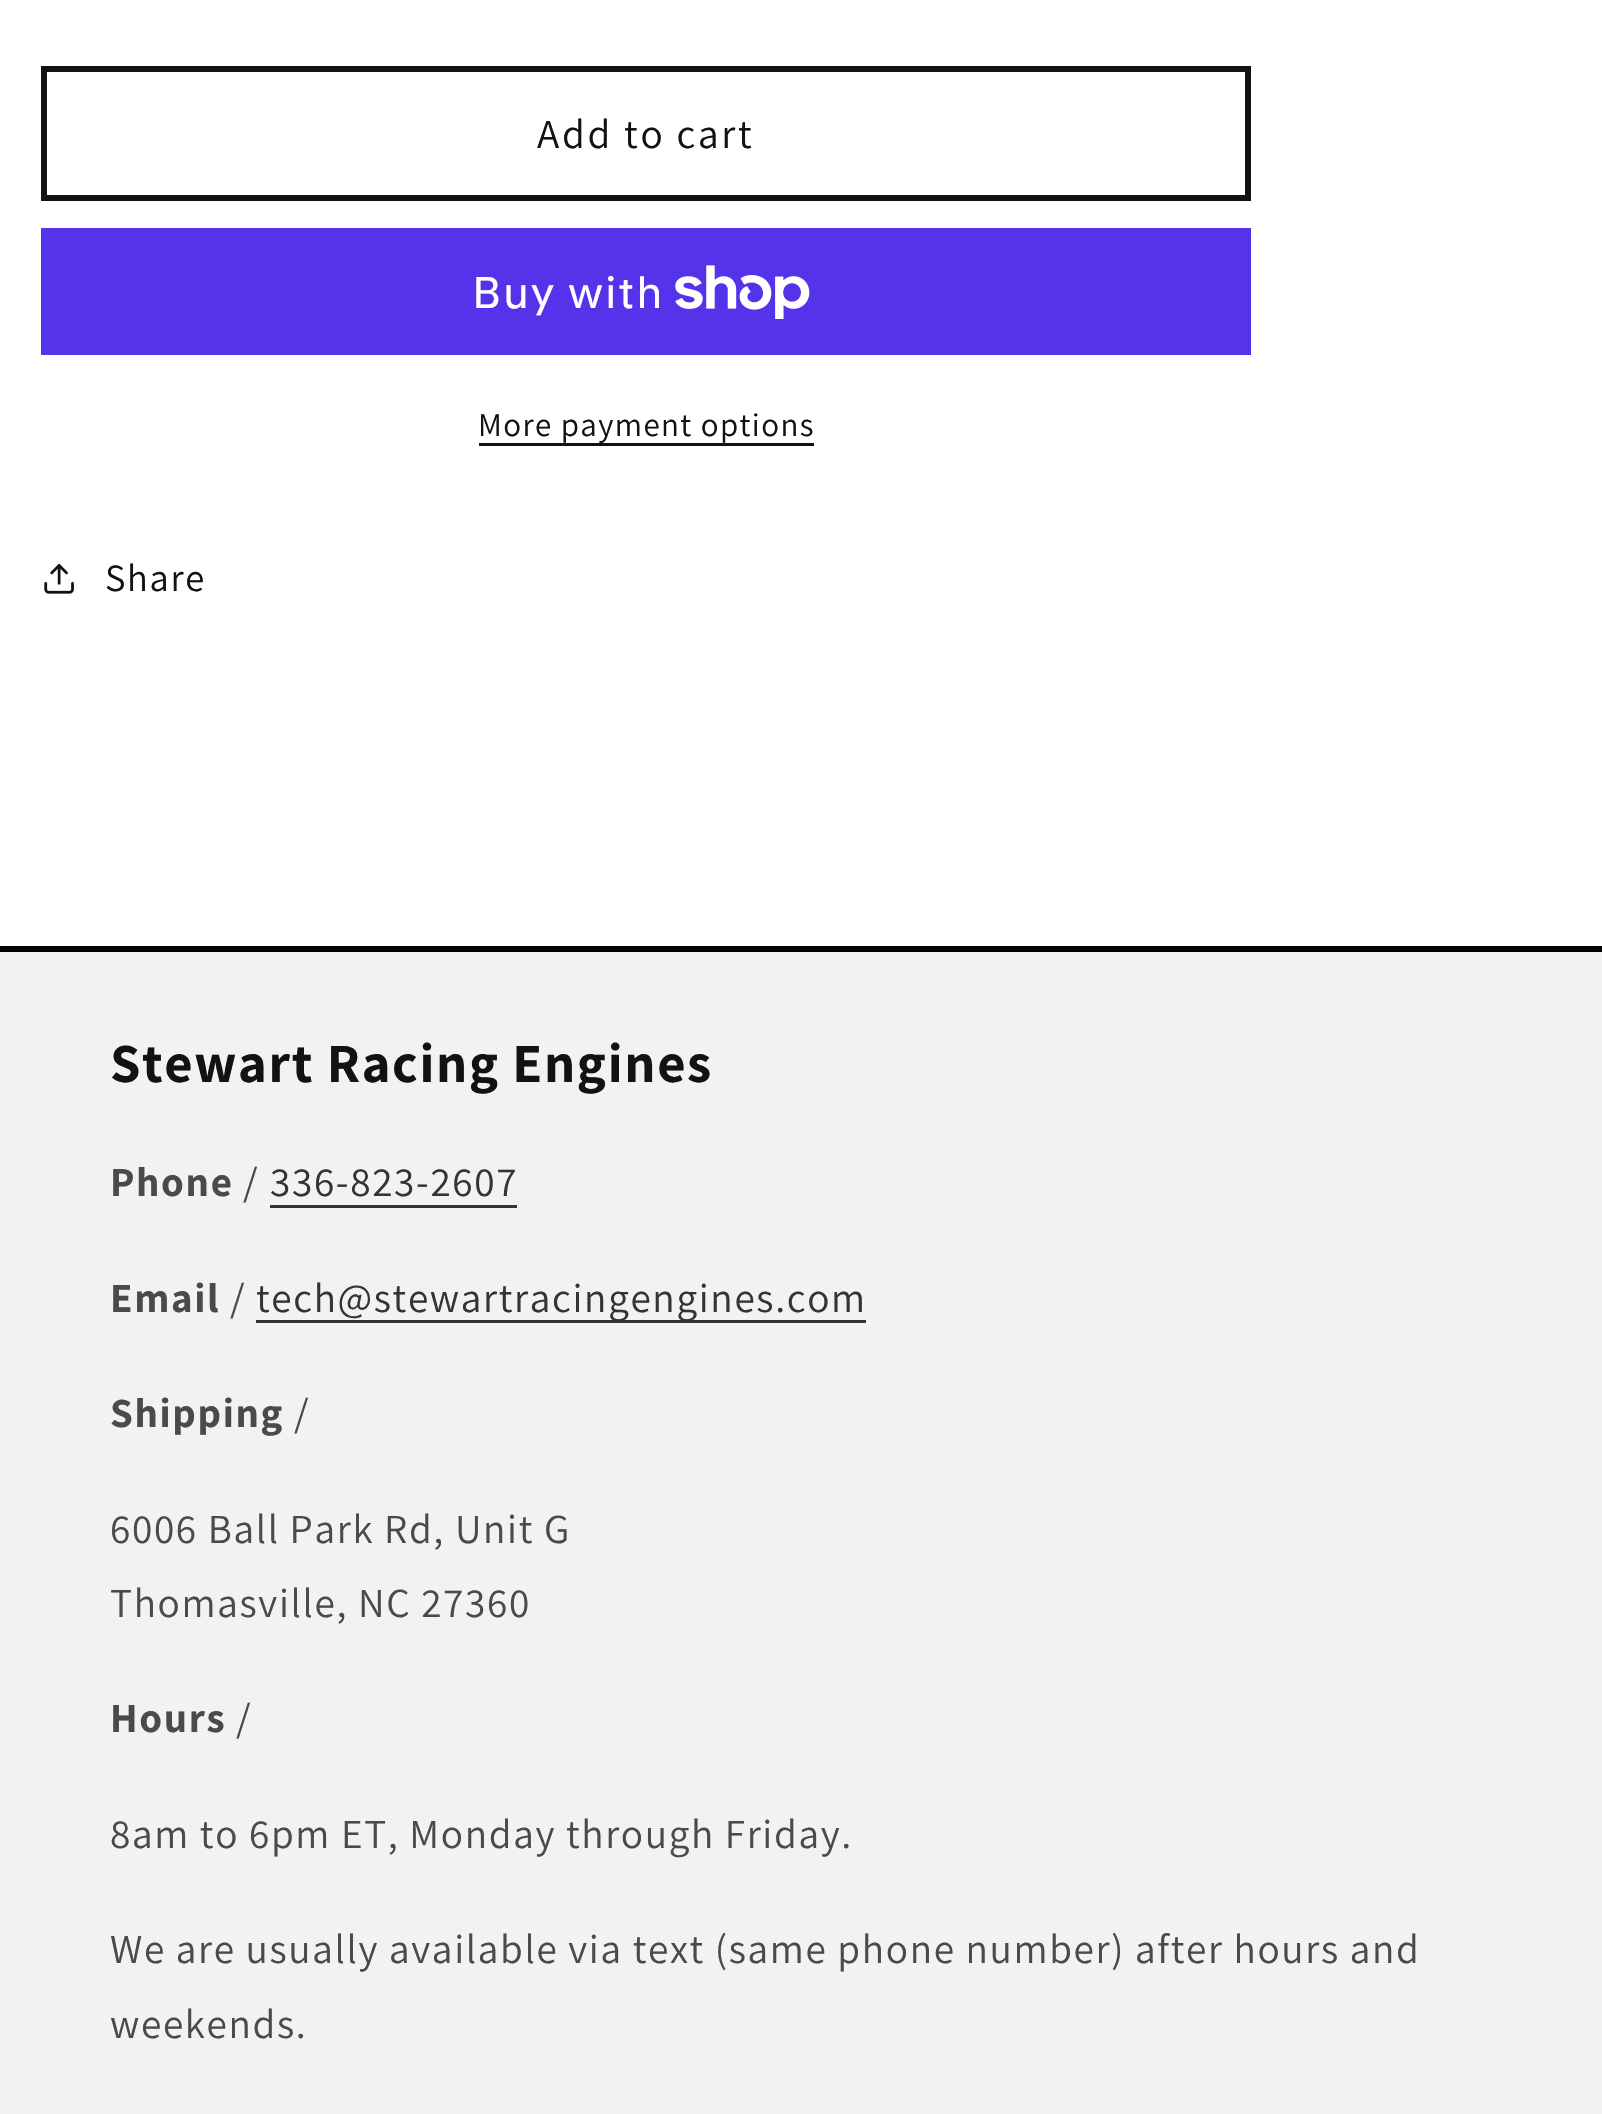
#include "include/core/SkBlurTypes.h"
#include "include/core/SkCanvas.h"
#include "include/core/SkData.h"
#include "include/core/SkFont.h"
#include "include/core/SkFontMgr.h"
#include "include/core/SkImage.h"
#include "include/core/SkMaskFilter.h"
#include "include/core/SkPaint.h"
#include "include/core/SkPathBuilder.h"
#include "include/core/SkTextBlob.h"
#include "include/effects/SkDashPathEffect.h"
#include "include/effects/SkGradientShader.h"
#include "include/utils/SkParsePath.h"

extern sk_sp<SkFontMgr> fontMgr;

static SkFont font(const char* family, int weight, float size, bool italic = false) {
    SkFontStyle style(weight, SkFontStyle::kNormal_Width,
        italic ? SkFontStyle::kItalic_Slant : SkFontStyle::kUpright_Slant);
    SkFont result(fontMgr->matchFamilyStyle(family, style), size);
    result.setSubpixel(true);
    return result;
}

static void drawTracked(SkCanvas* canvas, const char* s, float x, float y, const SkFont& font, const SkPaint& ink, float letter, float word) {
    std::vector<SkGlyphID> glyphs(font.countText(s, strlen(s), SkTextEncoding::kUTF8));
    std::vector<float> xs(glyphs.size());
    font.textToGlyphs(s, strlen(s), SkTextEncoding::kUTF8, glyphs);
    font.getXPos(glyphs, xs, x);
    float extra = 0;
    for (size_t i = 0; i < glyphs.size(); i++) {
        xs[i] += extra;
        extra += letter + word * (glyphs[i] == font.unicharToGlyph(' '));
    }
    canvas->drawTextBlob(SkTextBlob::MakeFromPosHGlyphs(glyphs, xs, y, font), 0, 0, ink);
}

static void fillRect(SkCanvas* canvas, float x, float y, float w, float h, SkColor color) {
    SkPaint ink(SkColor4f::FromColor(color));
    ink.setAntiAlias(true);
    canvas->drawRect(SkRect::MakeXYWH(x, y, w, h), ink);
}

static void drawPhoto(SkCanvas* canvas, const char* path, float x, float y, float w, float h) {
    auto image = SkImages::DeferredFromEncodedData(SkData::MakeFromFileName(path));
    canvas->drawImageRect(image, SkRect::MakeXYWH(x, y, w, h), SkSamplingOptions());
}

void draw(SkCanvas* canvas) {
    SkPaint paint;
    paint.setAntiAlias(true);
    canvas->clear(0xFFFFFFFF);
    paint.setStroke(true);
    paint.setStrokeWidth(6);
    paint.setColor(0xFF121212);
    canvas->drawRect(SkRect::MakeXYWH(44, 69, 1204, 129), paint);
    SkFont font1 = font("Assistant", 400, 41.25f);
    paint.setStroke(false);
    drawTracked(canvas, "Add to cart", 537, 148, font1, paint, 2.75f, 0);
    fillRect(canvas, 41, 228, 1210, 127, 0xFF5433EB);
    SkFont font2 = font("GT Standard", 400, 44);
    paint.setColor(0xFFFFFFFF);
    drawTracked(canvas, "Buy with", 472, 308, font2, paint, 1.65f, 0);
    drawPhoto(canvas, "assets/img1.png", 675, 265, 135, 54);
    SkFont font3 = font("Assistant", 400, 33);
    paint.setColor(0xFF121212);
    drawTracked(canvas, "More payment options", 478, 436, font3, paint, 1.4f, 0);
    fillRect(canvas, 479, 443, 335, 3, 0xFF121212);
    drawPhoto(canvas, "assets/img2.png", 44, 564, 30, 30);
    SkFont font4 = font("Assistant", 400, 38.5f);
    drawTracked(canvas, "Share", 105, 591, font4, paint, 1.65f, 0);
    fillRect(canvas, 0, 952, 1602, 1162, 0xFFF2F2F2);
    fillRect(canvas, 0, 946, 1602, 6, 0xFF000000);
    SkFont font5 = font("Assistant", 700, 55);
    drawTracked(canvas, "Stewart Racing Engines", 110, 1082, font5, paint, 1.65f, 0);
    SkFont font6 = font("Assistant", 700, 41.25f);
    paint.setColor(0xFF4A4A4A);
    drawTracked(canvas, "Phone", 110, 1196, font6, paint, 1.65f, 0);
    drawTracked(canvas, "/", 243, 1196, font1, paint, 1.65f, 0);
    paint.setColor(0xFF343434);
    drawTracked(canvas, "336-823-2607", 270, 1196, font1, paint, 1.65f, 0);
    fillRect(canvas, 270, 1205, 247, 3, 0xFF343434);
    paint.setColor(0xFF4A4A4A);
    drawTracked(canvas, "Email", 110, 1312, font6, paint, 1.65f, 0);
    drawTracked(canvas, "/", 230, 1312, font1, paint, 1.65f, 0);
    fillRect(canvas, 256, 1320, 610, 3, 0xFF343434);
    paint.setColor(0xFF343434);
    drawTracked(canvas, "tech@stewartracingengines.com", 256, 1312, font1, paint, 1.65f, 0);
    paint.setColor(0xFF4A4A4A);
    drawTracked(canvas, "Shipping", 110, 1427, font6, paint, 1.65f, 0);
    drawTracked(canvas, "/", 294, 1427, font1, paint, 1.65f, 0);
    drawTracked(canvas, "6006 Ball Park Rd, Unit G", 110, 1543, font1, paint, 1.65f, 0);
    drawTracked(canvas, "Thomasville, NC 27360", 110, 1617, font1, paint, 1.65f, 0);
    drawTracked(canvas, "Hours", 110, 1732, font6, paint, 1.65f, 0);
    drawTracked(canvas, "/", 236, 1732, font1, paint, 1.65f, 0);
    drawTracked(canvas, "8am to 6pm ET, Monday through Friday.", 110, 1848, font1, paint, 1.65f, 0);
    drawTracked(canvas, "We are usually available via text (same phone number) after hours and", 110, 1963, font1, paint, 1.65f, 0);
    drawTracked(canvas, "weekends.", 110, 2038, font1, paint, 1.65f, 0);
}
